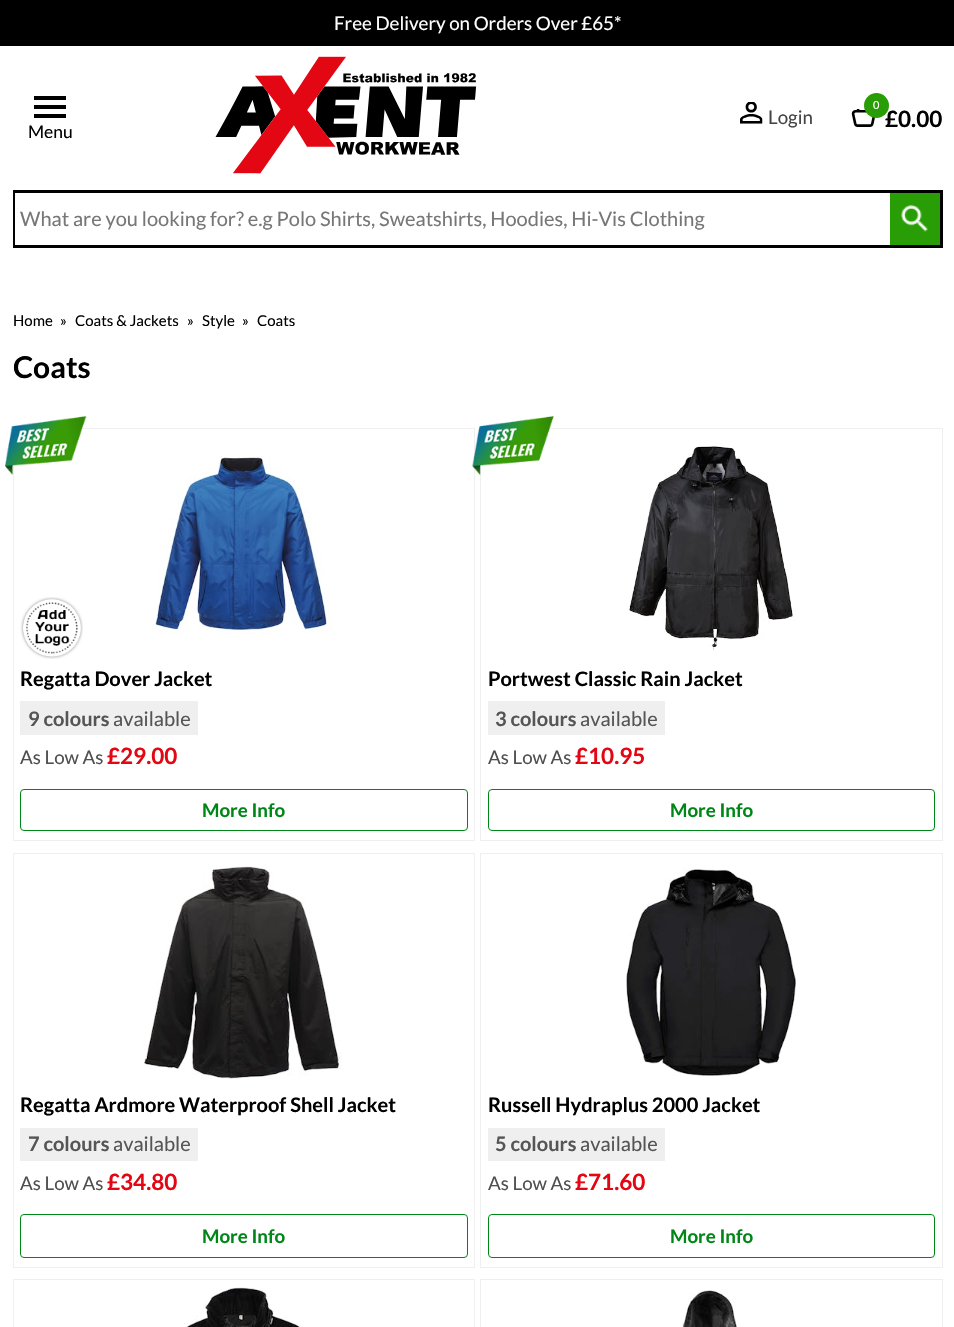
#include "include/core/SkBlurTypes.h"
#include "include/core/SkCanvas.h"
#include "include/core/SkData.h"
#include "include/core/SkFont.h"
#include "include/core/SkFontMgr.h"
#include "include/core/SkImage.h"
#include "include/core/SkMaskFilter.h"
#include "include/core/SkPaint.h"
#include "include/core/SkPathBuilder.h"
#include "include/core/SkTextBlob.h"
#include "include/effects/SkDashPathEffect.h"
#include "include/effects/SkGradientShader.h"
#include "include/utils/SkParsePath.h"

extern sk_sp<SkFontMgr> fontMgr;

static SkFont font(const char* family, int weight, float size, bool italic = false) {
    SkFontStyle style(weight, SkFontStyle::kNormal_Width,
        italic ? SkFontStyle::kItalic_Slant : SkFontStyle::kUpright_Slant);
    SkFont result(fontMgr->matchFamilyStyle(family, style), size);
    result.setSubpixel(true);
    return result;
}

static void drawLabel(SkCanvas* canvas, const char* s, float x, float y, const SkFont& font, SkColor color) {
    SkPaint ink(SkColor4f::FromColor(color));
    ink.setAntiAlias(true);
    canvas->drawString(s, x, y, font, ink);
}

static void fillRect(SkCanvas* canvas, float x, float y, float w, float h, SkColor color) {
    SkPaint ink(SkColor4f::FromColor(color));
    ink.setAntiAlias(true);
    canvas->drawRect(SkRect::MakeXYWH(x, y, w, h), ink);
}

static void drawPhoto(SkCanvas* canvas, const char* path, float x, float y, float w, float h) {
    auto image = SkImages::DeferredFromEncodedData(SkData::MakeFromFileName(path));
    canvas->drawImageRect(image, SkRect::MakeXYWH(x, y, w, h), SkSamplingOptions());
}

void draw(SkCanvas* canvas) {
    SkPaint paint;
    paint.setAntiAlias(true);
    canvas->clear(0xFFFFFFFF);
    fillRect(canvas, 0, 0, 954, 46, 0xFF000000);
    SkFont font1 = font("Lato", 400, 18.75f);
    drawLabel(canvas, "Free Delivery on Orders Over £65*", 334, 30, font1, 0xFFFFFFFF);
    drawPhoto(canvas, "assets/img1.png", 740, 102, 23, 22);
    drawLabel(canvas, "Login", 768, 124, font1, 0xFF444444);
    drawPhoto(canvas, "assets/img2.png", 851, 109, 24, 18);
    SkFont font2 = font("Lato", 700, 22.5f);
    drawLabel(canvas, "£0.00", 885, 127, font2, 0xFF000000);
    paint.setColor(0xFF299D05);
    canvas->drawCircle(876.5f, 105.5f, 12.5f, paint);
    SkFont font3 = font("Lato", 400, 11);
    drawLabel(canvas, "0", 873, 109, font3, 0xFFFFFFFF);
    fillRect(canvas, 34, 96, 32, 4, 0xFF000000);
    fillRect(canvas, 34, 105, 32, 4, 0xFF000000);
    fillRect(canvas, 34, 114, 32, 4, 0xFF000000);
    SkFont font4 = font("Lato", 400, 17.5f);
    drawLabel(canvas, "Menu", 28, 138, font4, 0xFF000000);
    drawPhoto(canvas, "assets/img3.png", 215, 56, 262, 118);
    paint.setStroke(true);
    paint.setStrokeWidth(3);
    paint.setColor(0xFF000000);
    canvas->drawRect(SkRect::MakeXYWH(14.5f, 191.5f, 927, 55), paint);
    fillRect(canvas, 15, 193, 1, 52, 0xFFFFFFFF);
    SkFont font5 = font("Lato", 400, 20);
    drawLabel(canvas, "What are you looking for? e.g Polo Shirts, Sweatshirts, Hoodies, Hi-Vis Clothing", 20, 226, font5, 0xFF777777);
    fillRect(canvas, 890, 193, 50, 52, 0xFF299D05);
    drawPhoto(canvas, "assets/img4.png", 901, 204, 27, 28);
    SkFont font6 = font("Lato", 400, 15);
    drawLabel(canvas, "Home", 13, 326, font6, 0xFF000000);
    drawLabel(canvas, "»", 60, 326, font6, 0xFF000000);
    drawLabel(canvas, "Coats & Jackets", 75, 326, font6, 0xFF000000);
    drawLabel(canvas, "»", 187, 326, font6, 0xFF000000);
    drawLabel(canvas, "Style", 202, 326, font6, 0xFF000000);
    drawLabel(canvas, "»", 242, 326, font6, 0xFF000000);
    drawLabel(canvas, "Coats", 257, 326, font6, 0xFF000000);
    SkFont font7 = font("Lato", 700, 30);
    drawLabel(canvas, "Coats", 13, 378, font7, 0xFF000000);
    paint.setStrokeWidth(1);
    paint.setColor(0xFFEFEFEF);
    canvas->drawRect(SkRect::MakeXYWH(13.5f, 428.5f, 461, 412), paint);
    drawPhoto(canvas, "assets/img5.png", 5, 416, 82, 59);
    drawPhoto(canvas, "assets/img6.png", 20, 597, 63, 62);
    drawPhoto(canvas, "assets/img7.png", 152, 456, 181, 178);
    SkFont font8 = font("Lato", 700, 20);
    drawLabel(canvas, "Regatta Dover Jacket", 20, 686, font8, 0xFF000000);
    fillRect(canvas, 20, 701, 178, 34, 0xFFEFEFEF);
    drawLabel(canvas, "9 colours", 28, 726, font8, 0xFF555555);
    drawLabel(canvas, "available", 113, 726, font5, 0xFF555555);
    drawLabel(canvas, "As Low As", 20, 764, font1, 0xFF4F4F4F);
    drawLabel(canvas, "£29.00", 107, 764, font2, 0xFFE30613);
    paint.setColor(0xFF008617);
    canvas->drawRoundRect(SkRect::MakeXYWH(20.5f, 789.5f, 447, 41), 3.5f, 3.5f, paint);
    SkFont font9 = font("Lato", 700, 18.75f);
    drawLabel(canvas, "More Info", 202, 817, font9, 0xFF008617);
    paint.setColor(0xFFEFEFEF);
    canvas->drawRect(SkRect::MakeXYWH(480.5f, 428.5f, 462, 412), paint);
    drawPhoto(canvas, "assets/img8.png", 472, 416, 82, 59);
    drawPhoto(canvas, "assets/img9.png", 629, 446, 167, 205);
    drawLabel(canvas, "Portwest Classic Rain Jacket", 488, 686, font8, 0xFF000000);
    fillRect(canvas, 488, 701, 177, 34, 0xFFEFEFEF);
    drawLabel(canvas, "3 colours", 495, 726, font8, 0xFF555555);
    drawLabel(canvas, "available", 580, 726, font5, 0xFF555555);
    drawLabel(canvas, "As Low As", 488, 764, font1, 0xFF4F4F4F);
    drawLabel(canvas, "£10.95", 575, 764, font2, 0xFFE30613);
    paint.setColor(0xFF008617);
    canvas->drawRoundRect(SkRect::MakeXYWH(488.5f, 789.5f, 446, 41), 3.5f, 3.5f, paint);
    drawLabel(canvas, "More Info", 670, 817, font9, 0xFF008617);
    paint.setColor(0xFFEFEFEF);
    canvas->drawRect(SkRect::MakeXYWH(13.5f, 853.5f, 461, 414), paint);
    drawPhoto(canvas, "assets/img10.png", 143, 866, 199, 213);
    drawLabel(canvas, "Regatta Ardmore Waterproof Shell Jacket", 20, 1112, font8, 0xFF000000);
    fillRect(canvas, 20, 1128, 178, 33, 0xFFEFEFEF);
    drawLabel(canvas, "7 colours", 28, 1151, font8, 0xFF555555);
    drawLabel(canvas, "available", 113, 1151, font5, 0xFF555555);
    drawLabel(canvas, "As Low As", 20, 1190, font1, 0xFF4F4F4F);
    drawLabel(canvas, "£34.80", 107, 1190, font2, 0xFFE30613);
    paint.setColor(0xFF008617);
    canvas->drawRoundRect(SkRect::MakeXYWH(20.5f, 1214.5f, 447, 43), 3.5f, 3.5f, paint);
    drawLabel(canvas, "More Info", 202, 1243, font9, 0xFF008617);
    paint.setColor(0xFFEFEFEF);
    canvas->drawRect(SkRect::MakeXYWH(480.5f, 853.5f, 462, 414), paint);
    drawPhoto(canvas, "assets/img11.png", 626, 868, 170, 208);
    drawLabel(canvas, "Russell Hydraplus 2000 Jacket", 488, 1112, font8, 0xFF000000);
    fillRect(canvas, 488, 1128, 177, 33, 0xFFEFEFEF);
    drawLabel(canvas, "5 colours", 495, 1151, font8, 0xFF555555);
    drawLabel(canvas, "available", 580, 1151, font5, 0xFF555555);
    drawLabel(canvas, "As Low As", 488, 1190, font1, 0xFF4F4F4F);
    drawLabel(canvas, "£71.60", 575, 1190, font2, 0xFFE30613);
    paint.setColor(0xFF008617);
    canvas->drawRoundRect(SkRect::MakeXYWH(488.5f, 1214.5f, 446, 43), 3.5f, 3.5f, paint);
    drawLabel(canvas, "More Info", 670, 1243, font9, 0xFF008617);
    paint.setColor(0xFFEFEFEF);
    canvas->drawRect(SkRect::MakeXYWH(13.5f, 1279.5f, 461, 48), paint);
    drawPhoto(canvas, "assets/img12.png", 185, 1287, 115, 40);
    canvas->drawRect(SkRect::MakeXYWH(480.5f, 1279.5f, 462, 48), paint);
    drawPhoto(canvas, "assets/img13.png", 682, 1290, 55, 37);
}
